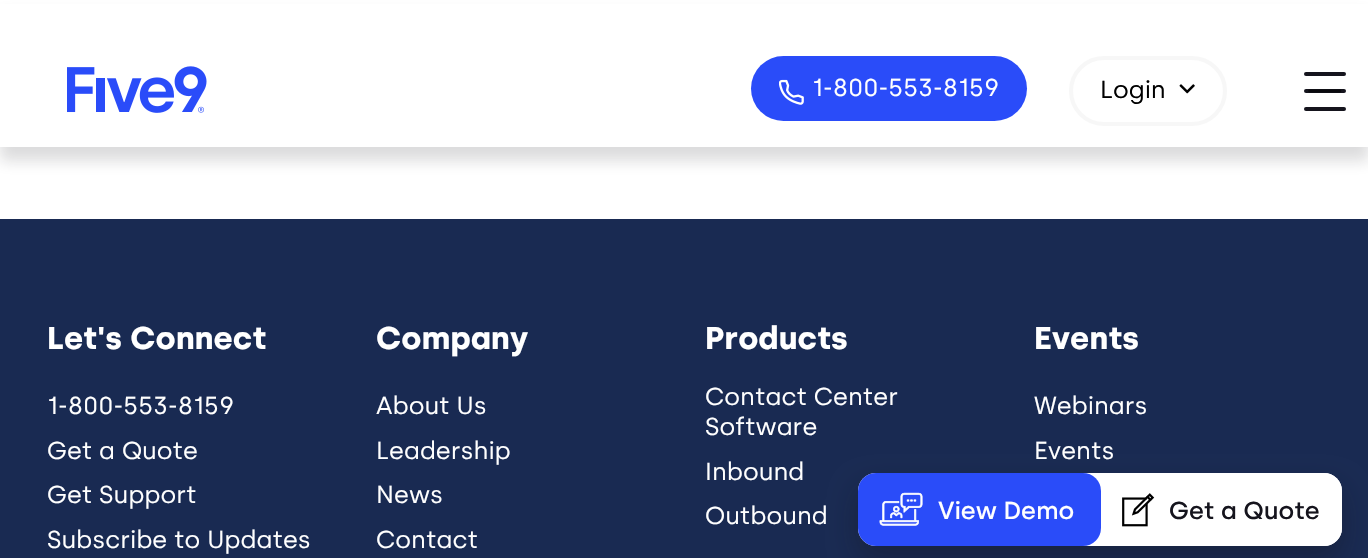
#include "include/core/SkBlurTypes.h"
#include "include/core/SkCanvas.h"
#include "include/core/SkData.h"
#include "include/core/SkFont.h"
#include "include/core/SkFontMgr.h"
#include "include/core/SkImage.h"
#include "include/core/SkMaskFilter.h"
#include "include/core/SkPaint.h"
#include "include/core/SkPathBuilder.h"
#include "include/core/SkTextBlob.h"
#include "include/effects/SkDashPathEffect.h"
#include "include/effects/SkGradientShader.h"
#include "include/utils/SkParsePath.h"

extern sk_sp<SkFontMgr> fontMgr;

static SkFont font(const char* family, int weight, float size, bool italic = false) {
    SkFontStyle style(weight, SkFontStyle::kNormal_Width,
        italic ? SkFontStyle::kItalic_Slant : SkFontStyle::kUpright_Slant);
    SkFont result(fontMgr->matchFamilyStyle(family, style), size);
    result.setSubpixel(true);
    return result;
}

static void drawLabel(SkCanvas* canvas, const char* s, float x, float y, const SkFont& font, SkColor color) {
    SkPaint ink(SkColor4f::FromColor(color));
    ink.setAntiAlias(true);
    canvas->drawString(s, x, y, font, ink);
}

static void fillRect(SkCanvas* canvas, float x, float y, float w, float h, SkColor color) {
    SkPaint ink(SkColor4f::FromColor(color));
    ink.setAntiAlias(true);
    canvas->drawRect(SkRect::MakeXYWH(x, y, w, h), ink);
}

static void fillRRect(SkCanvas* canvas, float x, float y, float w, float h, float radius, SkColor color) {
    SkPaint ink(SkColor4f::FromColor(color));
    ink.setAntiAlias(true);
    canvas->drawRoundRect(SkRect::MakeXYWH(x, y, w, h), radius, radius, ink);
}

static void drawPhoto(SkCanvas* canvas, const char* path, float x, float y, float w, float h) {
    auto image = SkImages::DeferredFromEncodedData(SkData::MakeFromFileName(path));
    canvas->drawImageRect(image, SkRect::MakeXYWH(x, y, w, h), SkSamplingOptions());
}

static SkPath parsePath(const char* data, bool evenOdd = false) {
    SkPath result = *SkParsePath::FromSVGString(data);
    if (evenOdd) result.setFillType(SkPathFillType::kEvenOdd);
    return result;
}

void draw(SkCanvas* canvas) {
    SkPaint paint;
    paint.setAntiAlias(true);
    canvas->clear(0xFFFFFFFF);
    paint.setColor(0x2615141D);
    paint.setMaskFilter(SkMaskFilter::MakeBlur(kNormal_SkBlurStyle, 7));
    canvas->drawRect(SkRect::MakeXYWH(0, 14, 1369, 147), paint);
    paint.setMaskFilter(nullptr);
    fillRect(canvas, 0, 4, 1368, 143, 0xFFFFFFFF);
    drawPhoto(canvas, "assets/img1.png", 67, 66, 140, 47);
    fillRRect(canvas, 1304, 89, 42, 4, 2, 0xFF15141D);
    canvas->save();
    canvas->clipPath(parsePath("M1306 89H1344C1345 89 1346 90 1346 91C1346 92 1345 93 1344 93H1306C1305 93 1304 92 1304 91C1304 90 1305 89 1306 89Z"), true);
    paint.setStroke(true);
    paint.setStrokeWidth(2.8f);
    paint.setStrokeCap(SkPaint::kRound_Cap);
    paint.setColor(0xFF09090D);
    canvas->drawPath(parsePath("M1309.5 80H1340M1309.5 91H1340M1309.5 102H1340"), paint);
    canvas->restore();
    fillRRect(canvas, 1304, 72, 42, 4, 2, 0xFF15141D);
    fillRRect(canvas, 1304, 107, 42, 4, 2, 0xFF15141D);
    fillRRect(canvas, 751, 56, 276, 65, 32.5f, 0xFF2A4CF9);
    drawPhoto(canvas, "assets/img2.png", 779, 79, 25, 26);
    SkFont font1 = font("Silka", 400, 24.5f);
    drawLabel(canvas, "1-800-553-8159", 812, 96, font1, 0xFFFFFFFF);
    paint.setStrokeWidth(4);
    paint.setStrokeCap(SkPaint::kButt_Cap);
    paint.setColor(0xFFF7F7F7);
    canvas->drawRoundRect(SkRect::MakeXYWH(1071, 58, 154, 66), 33, 33, paint);
    drawLabel(canvas, "Login", 1100, 98, font1, 0xFF000000);
    drawPhoto(canvas, "assets/img3.png", 1179, 84, 16, 10);
    fillRect(canvas, 0, 219, 1368, 339, 0xFF192A52);
    SkFont font2 = font("Silka", 700, 31.5f);
    drawLabel(canvas, "Let's Connect", 47, 349, font2, 0xFFFFFFFF);
    drawLabel(canvas, "1-800-553-8159", 47, 414, font1, 0xFFFFFFFF);
    drawLabel(canvas, "Get a Quote", 47, 459, font1, 0xFFFFFFFF);
    drawLabel(canvas, "Get Support", 47, 503, font1, 0xFFFFFFFF);
    drawLabel(canvas, "Subscribe to Updates", 47, 548, font1, 0xFFFFFFFF);
    drawLabel(canvas, "Company", 376, 349, font2, 0xFFFFFFFF);
    drawLabel(canvas, "About Us", 376, 414, font1, 0xFFFFFFFF);
    drawLabel(canvas, "Leadership", 376, 459, font1, 0xFFFFFFFF);
    drawLabel(canvas, "News", 376, 503, font1, 0xFFFFFFFF);
    drawLabel(canvas, "Contact", 376, 548, font1, 0xFFFFFFFF);
    drawLabel(canvas, "Products", 705, 349, font2, 0xFFFFFFFF);
    drawLabel(canvas, "Contact Center", 705, 405, font1, 0xFFFFFFFF);
    drawLabel(canvas, "Software", 705, 435, font1, 0xFFFFFFFF);
    drawLabel(canvas, "Inbound", 705, 480, font1, 0xFFFFFFFF);
    drawLabel(canvas, "Outbound", 705, 524, font1, 0xFFFFFFFF);
    drawLabel(canvas, "Events", 1034, 349, font2, 0xFFFFFFFF);
    drawLabel(canvas, "Webinars", 1034, 414, font1, 0xFFFFFFFF);
    drawLabel(canvas, "Events", 1034, 459, font1, 0xFFFFFFFF);
    paint.setStroke(false);
    paint.setColor(0x5915141D);
    paint.setMaskFilter(SkMaskFilter::MakeBlur(kNormal_SkBlurStyle, 14));
    canvas->drawRoundRect(SkRect::MakeXYWH(858, 487, 484, 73), 18, 18, paint);
    paint.setMaskFilter(nullptr);
    fillRRect(canvas, 858, 473, 484, 73, 18, 0xFFFFFFFF);
    fillRRect(canvas, 858, 473, 243, 73, 18, 0xFF2A4CF9);
    drawPhoto(canvas, "assets/img4.png", 879, 492, 44, 34);
    SkFont font3 = font("Silka", 500, 24.5f);
    drawLabel(canvas, "View Demo", 938, 519, font3, 0xFFFFFFFF);
    fillRRect(canvas, 1101, 473, 241, 73, 18, 0xFFFFFFFF);
    drawPhoto(canvas, "assets/img5.png", 1122, 493, 33, 34);
    drawLabel(canvas, "Get a Quote", 1169, 519, font3, 0xFF15141D);
}
